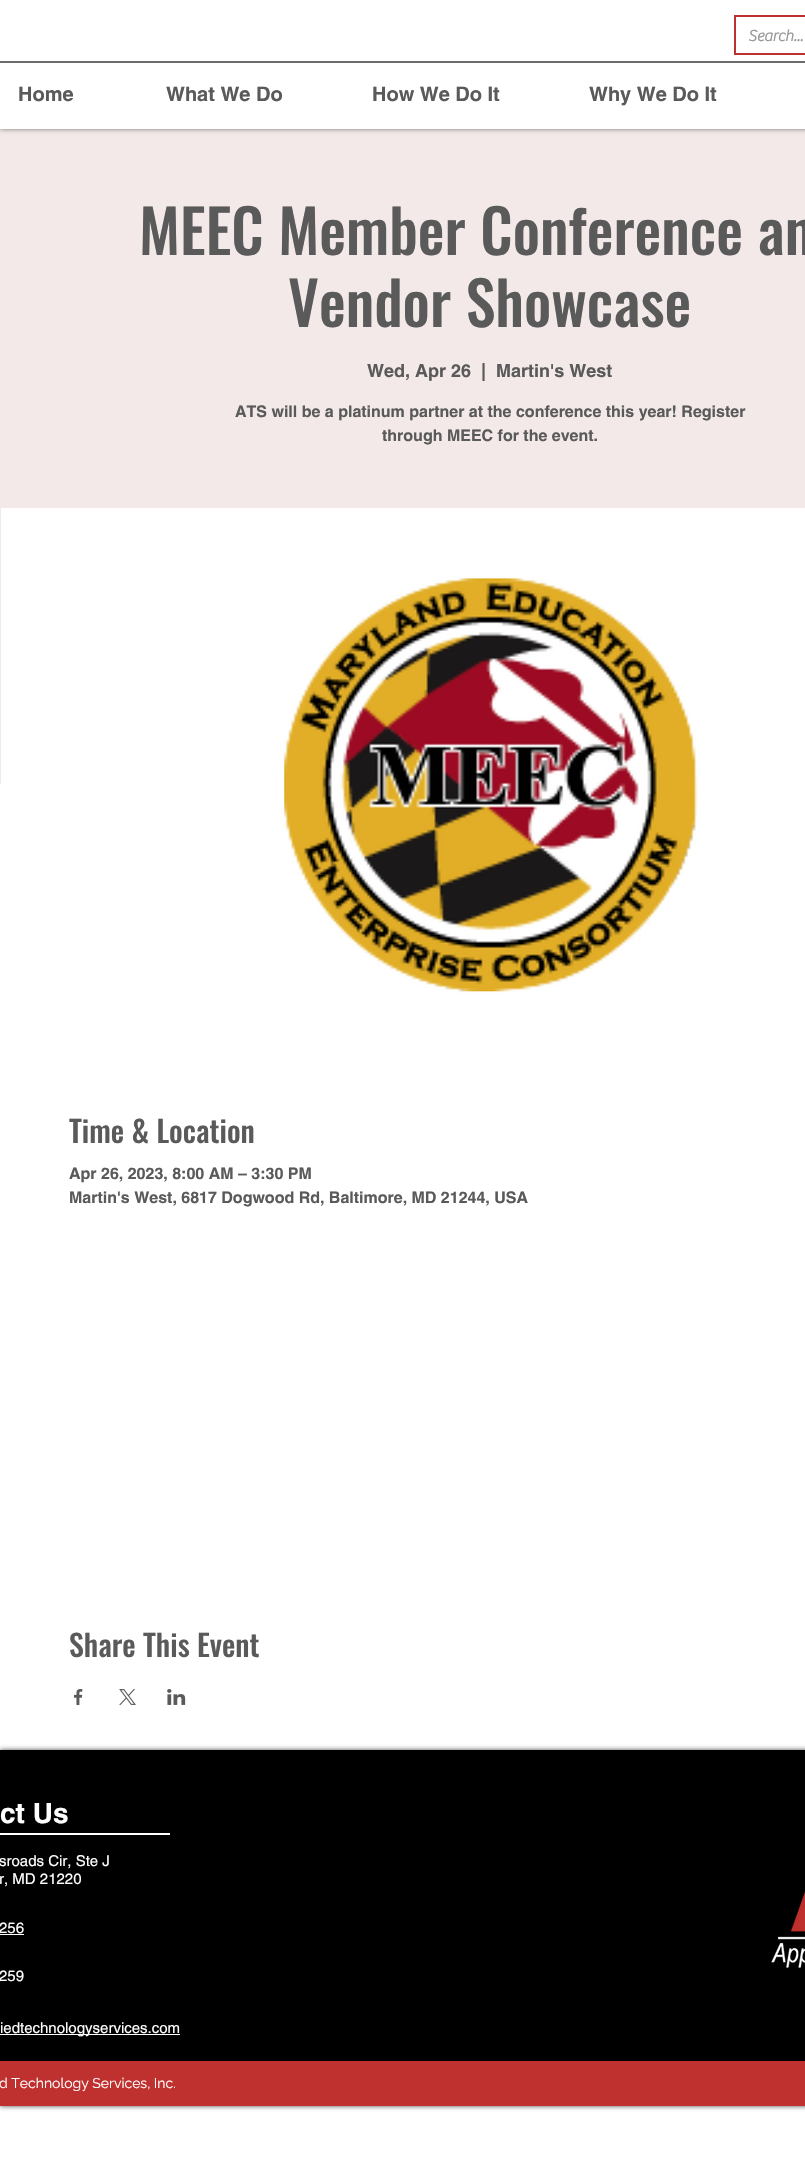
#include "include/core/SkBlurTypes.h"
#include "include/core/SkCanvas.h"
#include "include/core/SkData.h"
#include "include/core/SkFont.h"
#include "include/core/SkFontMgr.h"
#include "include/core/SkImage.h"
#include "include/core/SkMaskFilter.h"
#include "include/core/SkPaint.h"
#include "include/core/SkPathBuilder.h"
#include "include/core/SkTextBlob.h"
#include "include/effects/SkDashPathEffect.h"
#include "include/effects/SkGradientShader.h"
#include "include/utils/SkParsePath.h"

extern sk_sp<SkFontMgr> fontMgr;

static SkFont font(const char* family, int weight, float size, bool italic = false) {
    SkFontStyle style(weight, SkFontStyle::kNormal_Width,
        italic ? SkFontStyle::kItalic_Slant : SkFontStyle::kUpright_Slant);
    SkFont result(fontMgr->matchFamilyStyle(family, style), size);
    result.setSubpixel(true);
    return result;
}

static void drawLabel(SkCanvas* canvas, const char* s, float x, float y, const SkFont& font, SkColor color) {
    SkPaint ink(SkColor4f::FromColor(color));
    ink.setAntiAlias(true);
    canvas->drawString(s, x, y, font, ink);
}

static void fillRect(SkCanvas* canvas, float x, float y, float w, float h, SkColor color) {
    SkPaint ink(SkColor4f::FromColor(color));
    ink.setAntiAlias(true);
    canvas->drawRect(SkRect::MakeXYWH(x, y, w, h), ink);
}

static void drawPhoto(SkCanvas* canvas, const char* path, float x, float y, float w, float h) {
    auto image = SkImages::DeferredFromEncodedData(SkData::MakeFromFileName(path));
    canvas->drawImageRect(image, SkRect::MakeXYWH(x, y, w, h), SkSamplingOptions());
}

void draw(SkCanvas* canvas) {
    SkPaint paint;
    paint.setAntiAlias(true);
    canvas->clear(0xFFFFFFFF);
    fillRect(canvas, 0, 129, 805, 655, 0xFFF3E9E9);
    paint.setColor(0x80000000);
    paint.setMaskFilter(SkMaskFilter::MakeBlur(kNormal_SkBlurStyle, 2.5f));
    canvas->drawRect(SkRect::MakeXYWH(0, 0, 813, 129), paint);
    paint.setMaskFilter(nullptr);
    fillRect(canvas, 0, 0, 805, 129, 0xFFFFFFFF);
    paint.setStroke(true);
    paint.setStrokeWidth(2);
    paint.setColor(0xFFBF312E);
    canvas->drawRect(SkRect::MakeXYWH(735, 16, 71, 38), paint);
    SkFont font1 = font("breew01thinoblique", 700, 16);
    drawLabel(canvas, "Search...", 748, 41, font1, 0xFF999999);
    fillRect(canvas, 0, 61, 805, 2, 0xFF6D6D6D);
    SkFont font2 = font("helvetica", 700, 20);
    drawLabel(canvas, "Home", 18, 101, font2, 0xFF5A5A5A);
    drawLabel(canvas, "What We Do", 166, 101, font2, 0xFF5A5A5A);
    drawLabel(canvas, "How We Do It", 372, 101, font2, 0xFF5A5A5A);
    drawLabel(canvas, "Why We Do It", 589, 101, font2, 0xFF5A5A5A);
    SkFont font3 = font("Oswald", 500, 60);
    drawLabel(canvas, "MEEC Member Conference an", 139, 255, font3, 0xFF5A5A5A);
    drawLabel(canvas, "Vendor Showcase", 288, 327, font3, 0xFF5A5A5A);
    SkFont font4 = font("helvetica", 700, 18);
    drawLabel(canvas, "Wed, Apr 26", 367, 377, font4, 0xFF5A5A5A);
    drawLabel(canvas, "|", 481, 377, font4, 0xFF5A5A5A);
    drawLabel(canvas, "Martin's West", 496, 377, font4, 0xFF5A5A5A);
    SkFont font5 = font("helvetica", 700, 16);
    drawLabel(canvas, "ATS will be a platinum partner at the conference this year! Register", 235, 417, font5, 0xFF5A5A5A);
    drawLabel(canvas, "through MEEC for the event.", 382, 441, font5, 0xFF5A5A5A);
    drawPhoto(canvas, "assets/img1.png", 1, 508, 804, 552);
    SkFont font6 = font("Oswald", 500, 30);
    drawLabel(canvas, "Time & Location", 69, 1143, font6, 0xFF5A5A5A);
    drawLabel(canvas, "Apr 26, 2023, 8:00 AM – 3:30 PM", 69, 1179, font5, 0xFF5A5A5A);
    drawLabel(canvas, "Martin's West, 6817 Dogwood Rd, Baltimore, MD 21244, USA", 69, 1203, font5, 0xFF5A5A5A);
    drawLabel(canvas, "Share This Event", 69, 1657, font6, 0xFF5A5A5A);
    drawPhoto(canvas, "assets/img2.png", 74, 1689, 9, 16);
    drawPhoto(canvas, "assets/img3.png", 119, 1689, 17, 16);
    drawPhoto(canvas, "assets/img4.png", 167, 1689, 19, 16);
    paint.setStroke(false);
    paint.setColor(0xB3000000);
    paint.setMaskFilter(SkMaskFilter::MakeBlur(kNormal_SkBlurStyle, 2.5f));
    canvas->drawRect(SkRect::MakeXYWH(0, 1750, 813, 356), paint);
    paint.setMaskFilter(nullptr);
    fillRect(canvas, 0, 1750, 805, 311, 0xFF000000);
    SkFont font7 = font("helvetica", 700, 28);
    drawLabel(canvas, "ct Us", 0, 1823, font7, 0xFFFFFFFF);
    fillRect(canvas, 0, 1833, 170, 2, 0xFFFFFFFF);
    SkFont font8 = font("helvetica", 400, 15);
    drawLabel(canvas, "sroads Cir, Ste J", -1, 1866, font8, 0xFFFFFFFF);
    drawLabel(canvas, "r, MD 21220", -1, 1884, font8, 0xFFFFFFFF);
    drawLabel(canvas, "256", -1, 1933, font8, 0xFFFFFFFF);
    fillRect(canvas, 0, 1934, 24, 1, 0xFFFFFFFF);
    drawPhoto(canvas, "assets/img5.png", 771, 1891, 34, 77);
    drawLabel(canvas, "259", -1, 1981, font8, 0xFFFFFFFF);
    fillRect(canvas, 0, 2034, 180, 1, 0xFFFFFFFF);
    drawLabel(canvas, "iedtechnologyservices.com", 0, 2033, font8, 0xFFFFFFFF);
    fillRect(canvas, 0, 2061, 805, 45, 0xFFBF312E);
    SkFont font9 = font("Raleway", 400, 14);
    drawLabel(canvas, "d Technology Services, Inc.", -1, 2088, font9, 0xFFFFFFFF);
}
